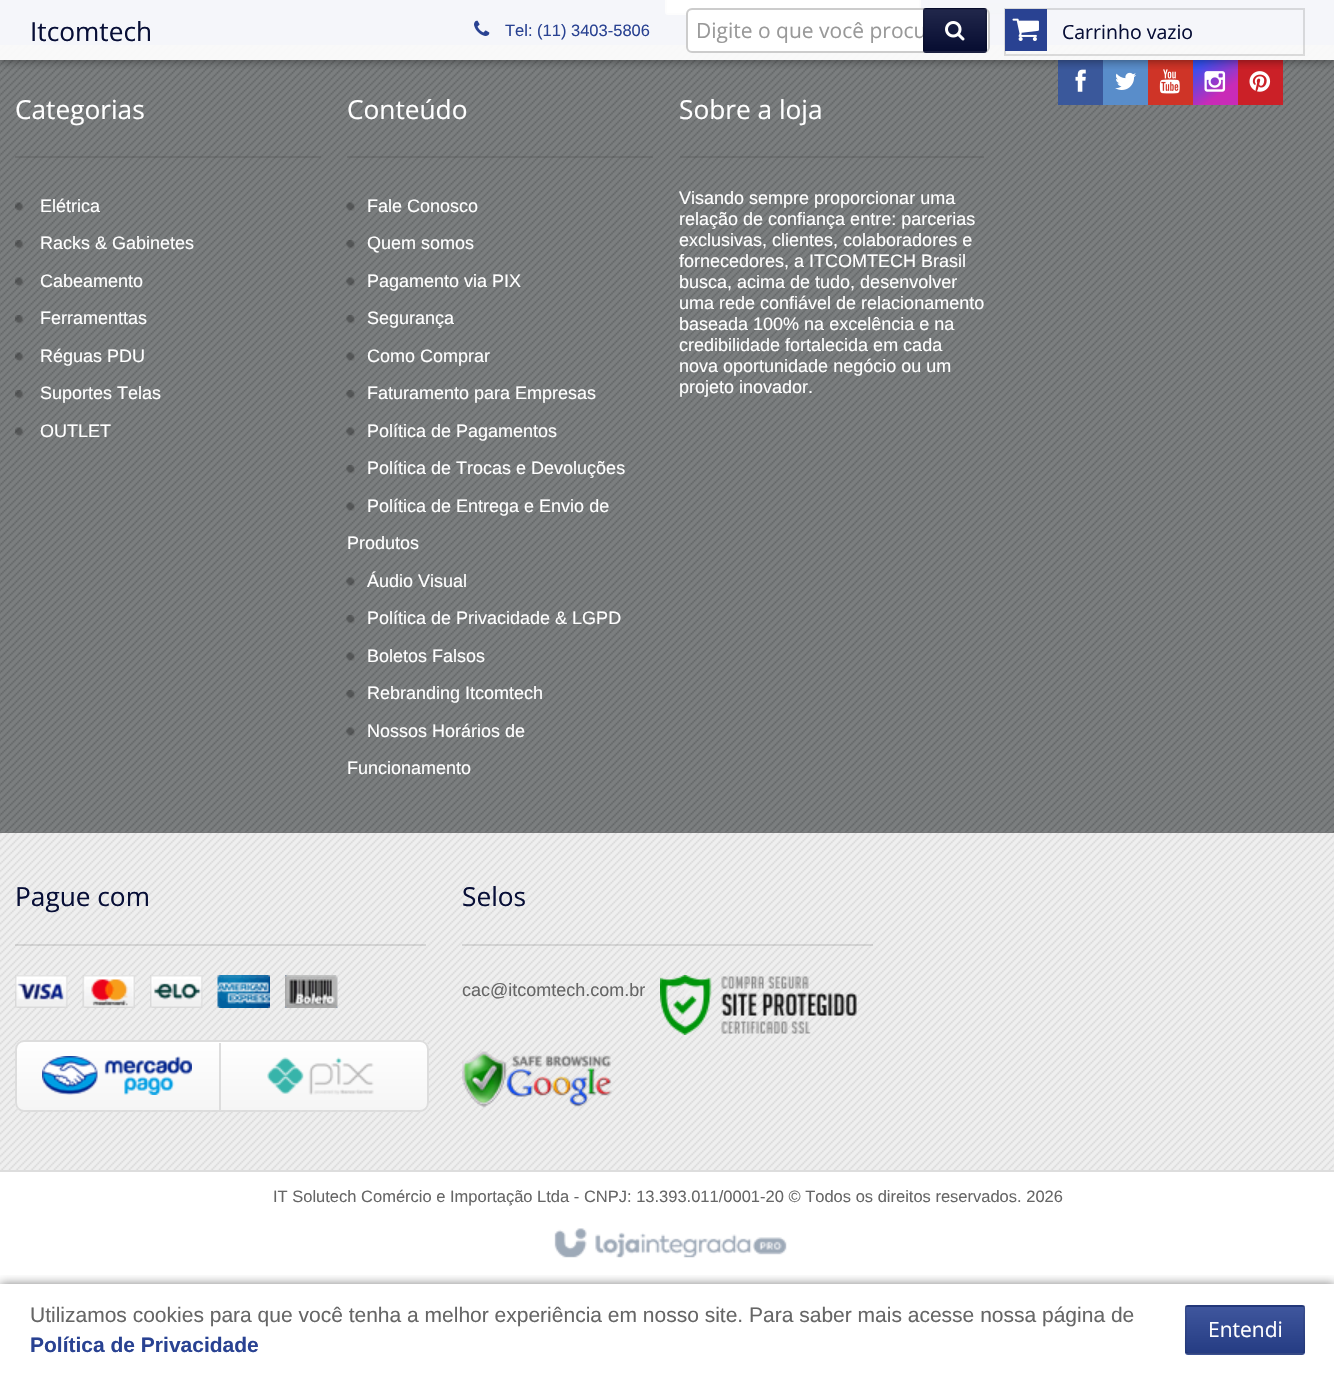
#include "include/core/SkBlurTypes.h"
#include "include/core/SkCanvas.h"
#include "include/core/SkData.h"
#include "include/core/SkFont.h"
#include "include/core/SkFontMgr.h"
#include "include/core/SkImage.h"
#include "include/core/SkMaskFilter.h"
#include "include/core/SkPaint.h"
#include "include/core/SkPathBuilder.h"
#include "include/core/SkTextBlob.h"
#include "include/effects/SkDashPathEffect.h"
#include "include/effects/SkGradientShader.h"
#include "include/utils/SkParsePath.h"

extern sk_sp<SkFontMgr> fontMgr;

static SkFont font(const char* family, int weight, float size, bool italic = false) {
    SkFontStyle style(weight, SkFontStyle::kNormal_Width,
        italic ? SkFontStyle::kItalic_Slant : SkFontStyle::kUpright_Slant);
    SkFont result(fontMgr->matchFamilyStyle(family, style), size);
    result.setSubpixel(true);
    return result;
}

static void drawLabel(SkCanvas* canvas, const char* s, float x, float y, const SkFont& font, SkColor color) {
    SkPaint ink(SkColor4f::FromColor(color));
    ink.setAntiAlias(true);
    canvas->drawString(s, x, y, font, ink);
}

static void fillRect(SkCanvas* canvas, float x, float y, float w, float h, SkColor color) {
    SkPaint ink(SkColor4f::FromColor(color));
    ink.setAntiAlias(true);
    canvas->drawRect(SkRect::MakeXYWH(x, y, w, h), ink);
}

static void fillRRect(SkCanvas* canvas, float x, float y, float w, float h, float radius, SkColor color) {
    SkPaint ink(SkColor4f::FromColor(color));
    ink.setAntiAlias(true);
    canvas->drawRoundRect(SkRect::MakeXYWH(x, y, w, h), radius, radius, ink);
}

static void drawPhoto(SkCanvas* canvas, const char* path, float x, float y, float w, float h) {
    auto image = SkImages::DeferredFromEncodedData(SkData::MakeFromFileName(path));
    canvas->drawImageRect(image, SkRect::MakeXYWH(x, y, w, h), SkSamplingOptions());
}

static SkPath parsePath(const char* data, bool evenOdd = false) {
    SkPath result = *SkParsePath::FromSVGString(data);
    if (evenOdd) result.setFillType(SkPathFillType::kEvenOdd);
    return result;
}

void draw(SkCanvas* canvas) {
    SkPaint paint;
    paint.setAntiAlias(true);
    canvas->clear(0xFFFFFFFF);
    fillRect(canvas, 0, 0, 1334, 45, 0xFF294292);
    paint.setColor(0xFFFFFFFF);
    canvas->drawRoundRect(SkRect::MakeXYWH(666, -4, 254, 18), 2, 2, paint);
    paint.setStroke(true);
    paint.setStrokeWidth(2);
    paint.setColor(0xFFCCCCCC);
    canvas->drawRoundRect(SkRect::MakeXYWH(666, -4, 254, 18), 2, 2, paint);
    paint.setStroke(false);
    {
        const SkColor colors[] = {0xFF3E559D, 0xFF253B83};
        const float stops[] = {0, 1};
        const SkPoint ends[] = {{989, -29}, {989, 14}};
        paint.setShader(SkGradientShader::MakeLinear(ends, colors, stops, 2, SkTileMode::kClamp));
        paint.setAlpha(255);
    }
    canvas->drawRect(SkRect::MakeXYWH(929, 0, 121, 14), paint);
    canvas->save();
    canvas->clipPath(parsePath("M932-30H1047C1048.5-30 1050-28.5 1050-27V12C1050 13.5 1048.5 15 1047 15H932C930.5 15 929 13.5 929 12V-27C929-28.5 930.5-30 932-30Z"), true);
    {
        const SkColor colors[] = {0xFF3E559D, 0xFF253B83};
        const float stops[] = {0, 1};
        const SkPoint ends[] = {{989, 13}, {989, 56}};
        paint.setShader(SkGradientShader::MakeLinear(ends, colors, stops, 2, SkTileMode::kClamp));
        paint.setAlpha(255);
    }
    canvas->drawRect(SkRect::MakeXYWH(990, 14, 60, 1), paint);
    canvas->restore();
    paint.setStroke(true);
    paint.setStrokeWidth(1.5f);
    paint.setShader(nullptr);
    paint.setColor(0x33000000);
    canvas->drawPath(parsePath("M1048.5 13.5L1047 14H931.5L930 13.5"), paint);
    paint.setColor(0x1A000000);
    canvas->drawPath(parsePath("M930 13.5C928 12 929-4.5 929-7.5V-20.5C929-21.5 927.5-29 931.5-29H1047C1051-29 1049-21.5 1049-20.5V-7.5C1049-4.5 1050.5 12 1048.5 13.5"), paint);
    fillRect(canvas, 0, 45, 1334, 788, 0xFF6C6F70);
    drawPhoto(canvas, "assets/img4.png", 0, 45, 1334, 788);
    fillRect(canvas, 1058, 60, 45, 45, 0xFF3A589B);
    drawPhoto(canvas, "assets/img5.png", 1075, 69, 11, 23);
    fillRect(canvas, 1103, 60, 45, 45, 0xFF598DCA);
    drawPhoto(canvas, "assets/img6.png", 1115, 72, 21, 18);
    fillRect(canvas, 1148, 60, 45, 45, 0xFFCF3427);
    drawPhoto(canvas, "assets/img7.png", 1159, 69, 21, 25);
    paint.setStroke(false);
    {
        const SkColor colors[] = {0xFF3051F1, 0xFFC92BB7};
        const float stops[] = {0.1f, 0.7f};
        const SkPoint ends[] = {{1197, 57}, {1233, 108}};
        paint.setShader(SkGradientShader::MakeLinear(ends, colors, stops, 2, SkTileMode::kClamp));
        paint.setAlpha(255);
    }
    canvas->drawRect(SkRect::MakeXYWH(1193, 60, 45, 45), paint);
    drawPhoto(canvas, "assets/img8.png", 1204, 71, 22, 21);
    fillRect(canvas, 1238, 60, 45, 45, 0xFFCB2027);
    drawPhoto(canvas, "assets/img9.png", 1249, 71, 22, 21);
    canvas->save();
    canvas->clipRect(SkRect::MakeXYWH(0, 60, 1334, 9));
    paint.setShader(nullptr);
    paint.setColor(0x80000000);
    paint.setMaskFilter(SkMaskFilter::MakeBlur(kNormal_SkBlurStyle, 5));
    canvas->drawRect(SkRect::MakeXYWH(0, 0, 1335, 60), paint);
    paint.setMaskFilter(nullptr);
    canvas->restore();
    fillRect(canvas, 0, 0, 1334, 60, 0xF2FFFFFF);
    SkFont font1 = font("Open Sans", 400, 26.25f);
    drawLabel(canvas, "Itcomtech", 30, 41, font1, 0xFF070E36);
    drawPhoto(canvas, "assets/img1.png", 474, 20, 16, 16);
    SkFont font2 = font("Liberation Sans", 400, 16.5f);
    drawLabel(canvas, "Tel: (11) 3403-5806", 505, 36, font2, 0xFF294292);
    fillRRect(canvas, 686, 8, 304, 45, 6, 0xFFFFFFFF);
    paint.setColor(0xFFECECEC);
    canvas->drawPath(parsePath("M692 10H984C990 10 988 24 988 26V49C989 48 989 47 989 46V14C989 11 987 9 984 9H692C689 9 687 11 687 14V15C687 13 689 10 692 10Z"), paint);
    paint.setStroke(true);
    paint.setStrokeWidth(2);
    paint.setColor(0xFFCCCCCC);
    canvas->drawRoundRect(SkRect::MakeXYWH(687, 9, 302, 43), 5, 5, paint);
    SkFont font3 = font("Open Sans", 400, 21);
    drawLabel(canvas, "Digite o que você procu", 696, 38, font3, 0xFF999999);
    fillRRect(canvas, 923, 8, 64, 45, 3, 0xFF070E36);
    paint.setStroke(false);
    {
        const SkColor colors[] = {0x1AFFFFFF, 0x1A000000};
        const float stops[] = {0, 1};
        const SkPoint ends[] = {{955, -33}, {955, 9}};
        paint.setShader(SkGradientShader::MakeLinear(ends, colors, stops, 2, SkTileMode::kClamp));
        paint.setAlpha(255);
    }
    canvas->drawRect(SkRect::MakeXYWH(923, 8, 64, 1), paint);
    {
        const SkColor colors[] = {0x1AFFFFFF, 0x1A000000};
        const float stops[] = {0, 1};
        const SkPoint ends[] = {{955, 9}, {955, 51}};
        paint.setShader(SkGradientShader::MakeLinear(ends, colors, stops, 2, SkTileMode::kClamp));
        paint.setAlpha(255);
    }
    canvas->drawRect(SkRect::MakeXYWH(923, 9, 64, 42), paint);
    {
        const SkColor colors[] = {0x1AFFFFFF, 0x1A000000};
        const float stops[] = {0, 1};
        const SkPoint ends[] = {{955, 51}, {955, 93}};
        paint.setShader(SkGradientShader::MakeLinear(ends, colors, stops, 2, SkTileMode::kClamp));
        paint.setAlpha(255);
    }
    canvas->drawRect(SkRect::MakeXYWH(923, 51, 64, 2), paint);
    paint.setStroke(true);
    paint.setShader(nullptr);
    paint.setColor(0x21000000);
    canvas->drawRoundRect(SkRect::MakeXYWH(924, 9, 62, 43), 2, 2, paint);
    drawPhoto(canvas, "assets/img2.png", 945, 21, 20, 20);
    paint.setColor(0x1F000000);
    canvas->drawRect(SkRect::MakeXYWH(1005, 9, 299, 46), paint);
    fillRect(canvas, 1005, 9, 42, 42, 0xFF294292);
    drawPhoto(canvas, "assets/img3.png", 1012, 18, 27, 23);
    SkFont font4 = font("Open Sans", 400, 19.5f);
    drawLabel(canvas, "Carrinho vazio", 1062, 39, font4, 0xFF070E36);
    fillRect(canvas, 15, 156, 306, 2, 0x1A000000);
    drawLabel(canvas, "Categorias", 15, 119, font1, 0xFFFFFFFF);
    drawPhoto(canvas, "assets/img10.png", 15, 202, 9, 9);
    SkFont font5 = font("Liberation Sans", 400, 18);
    drawLabel(canvas, "Elétrica", 40, 212, font5, 0xFFFFFFFF);
    drawPhoto(canvas, "assets/img11.png", 15, 240, 9, 9);
    drawLabel(canvas, "Racks & Gabinetes", 40, 249, font5, 0xFFFFFFFF);
    drawPhoto(canvas, "assets/img12.png", 15, 277, 9, 9);
    drawLabel(canvas, "Cabeamento", 40, 287, font5, 0xFFFFFFFF);
    drawPhoto(canvas, "assets/img11.png", 15, 315, 9, 9);
    drawLabel(canvas, "Ferramenttas", 40, 324, font5, 0xFFFFFFFF);
    drawPhoto(canvas, "assets/img10.png", 15, 352, 9, 9);
    drawLabel(canvas, "Réguas PDU", 40, 362, font5, 0xFFFFFFFF);
    drawPhoto(canvas, "assets/img11.png", 15, 390, 9, 9);
    drawLabel(canvas, "Suportes Telas", 40, 399, font5, 0xFFFFFFFF);
    drawPhoto(canvas, "assets/img10.png", 15, 427, 9, 9);
    drawLabel(canvas, "OUTLET", 40, 437, font5, 0xFFFFFFFF);
    fillRect(canvas, 347, 156, 306, 2, 0x1A000000);
    drawLabel(canvas, "Conteúdo", 347, 119, font1, 0xFFFFFFFF);
    drawPhoto(canvas, "assets/img13.png", 346, 202, 9, 9);
    drawLabel(canvas, "Fale Conosco", 367, 212, font5, 0xFFFFFFFF);
    drawPhoto(canvas, "assets/img14.png", 346, 240, 9, 9);
    drawLabel(canvas, "Quem somos", 367, 249, font5, 0xFFFFFFFF);
    drawPhoto(canvas, "assets/img15.png", 346, 277, 9, 9);
    drawLabel(canvas, "Pagamento via PIX", 367, 287, font5, 0xFFFFFFFF);
    drawPhoto(canvas, "assets/img14.png", 346, 315, 9, 9);
    drawLabel(canvas, "Segurança", 367, 324, font5, 0xFFFFFFFF);
    drawPhoto(canvas, "assets/img13.png", 346, 352, 9, 9);
    drawLabel(canvas, "Como Comprar", 367, 362, font5, 0xFFFFFFFF);
    drawPhoto(canvas, "assets/img14.png", 346, 390, 9, 9);
    drawLabel(canvas, "Faturamento para Empresas", 367, 399, font5, 0xFFFFFFFF);
    drawPhoto(canvas, "assets/img13.png", 346, 427, 9, 9);
    drawLabel(canvas, "Política de Pagamentos", 367, 437, font5, 0xFFFFFFFF);
    drawPhoto(canvas, "assets/img14.png", 346, 465, 9, 9);
    drawLabel(canvas, "Política de Trocas e Devoluções", 367, 474, font5, 0xFFFFFFFF);
    drawPhoto(canvas, "assets/img13.png", 346, 502, 9, 9);
    drawLabel(canvas, "Política de Entrega e Envio de", 367, 512, font5, 0xFFFFFFFF);
    drawLabel(canvas, "Produtos", 347, 549, font5, 0xFFFFFFFF);
    drawPhoto(canvas, "assets/img13.png", 346, 577, 9, 9);
    drawLabel(canvas, "Áudio Visual", 367, 587, font5, 0xFFFFFFFF);
    drawPhoto(canvas, "assets/img14.png", 346, 615, 9, 9);
    drawLabel(canvas, "Política de Privacidade & LGPD", 367, 624, font5, 0xFFFFFFFF);
    drawPhoto(canvas, "assets/img13.png", 346, 652, 9, 9);
    drawLabel(canvas, "Boletos Falsos", 367, 662, font5, 0xFFFFFFFF);
    drawPhoto(canvas, "assets/img14.png", 346, 690, 9, 9);
    drawLabel(canvas, "Rebranding Itcomtech", 367, 699, font5, 0xFFFFFFFF);
    drawPhoto(canvas, "assets/img15.png", 346, 727, 9, 9);
    drawLabel(canvas, "Nossos Horários de", 367, 737, font5, 0xFFFFFFFF);
    drawLabel(canvas, "Funcionamento", 347, 774, font5, 0xFFFFFFFF);
    fillRect(canvas, 680, 156, 304, 2, 0x1A000000);
    drawLabel(canvas, "Sobre a loja", 679, 119, font1, 0xFFFFFFFF);
    drawLabel(canvas, "Visando sempre proporcionar uma", 679, 204, font5, 0xFFFFFFFF);
    drawLabel(canvas, "relação de confiança entre: parcerias", 679, 225, font5, 0xFFFFFFFF);
    drawLabel(canvas, "exclusivas, clientes, colaboradores e", 679, 246, font5, 0xFFFFFFFF);
    drawLabel(canvas, "fornecedores, a ITCOMTECH Brasil", 679, 267, font5, 0xFFFFFFFF);
    drawLabel(canvas, "busca, acima de tudo, desenvolver", 679, 288, font5, 0xFFFFFFFF);
    drawLabel(canvas, "uma rede confiável de relacionamento", 679, 309, font5, 0xFFFFFFFF);
    drawLabel(canvas, "baseada 100% na excelência e na", 679, 330, font5, 0xFFFFFFFF);
    drawLabel(canvas, "credibilidade fortalecida em cada", 679, 351, font5, 0xFFFFFFFF);
    drawLabel(canvas, "nova oportunidade negócio ou um", 679, 372, font5, 0xFFFFFFFF);
    drawLabel(canvas, "projeto inovador.", 679, 393, font5, 0xFFFFFFFF);
    fillRect(canvas, 0, 833, 1334, 337, 0xFFEEEEEE);
    drawPhoto(canvas, "assets/img16.png", 0, 832, 1334, 338);
    fillRect(canvas, 15, 944, 411, 2, 0x1A000000);
    drawLabel(canvas, "Pague com", 15, 906, font1, 0xFF070E36);
    drawPhoto(canvas, "assets/img17.png", 15, 975, 53, 33);
    drawPhoto(canvas, "assets/img18.png", 82, 975, 53, 33);
    drawPhoto(canvas, "assets/img19.png", 150, 975, 53, 33);
    drawPhoto(canvas, "assets/img20.png", 217, 975, 53, 33);
    drawPhoto(canvas, "assets/img21.png", 285, 975, 53, 33);
    canvas->save();
    canvas->clipPath(parsePath("M24 1040H420C425 1040 429 1044 429 1049V1103C429 1108 425 1112 420 1112H24C19 1112 15 1108 15 1103V1049C15 1044 19 1040 24 1040Z"), true);
    paint.setStroke(false);
    {
        const SkColor colors[] = {0xFFFFFFFF, 0xFFF5F5F5};
        const float stops[] = {0, 1};
        const SkPoint ends[] = {{222, 1041}, {222, 1110}};
        paint.setShader(SkGradientShader::MakeLinear(ends, colors, stops, 2, SkTileMode::kClamp));
        paint.setAlpha(255);
    }
    canvas->drawRect(SkRect::MakeXYWH(15, 1041, 414, 69), paint);
    canvas->restore();
    paint.setStroke(true);
    paint.setShader(nullptr);
    paint.setColor(0xFFDDDDDD);
    canvas->drawRoundRect(SkRect::MakeXYWH(16, 1041, 412, 70), 8, 8, paint);
    drawPhoto(canvas, "assets/img22.png", 42, 1056, 150, 39);
    fillRect(canvas, 219, 1043, 2, 67, 0xFFDDDDDD);
    drawPhoto(canvas, "assets/img23.png", 267, 1057, 107, 38);
    fillRect(canvas, 462, 944, 411, 2, 0x1A000000);
    drawLabel(canvas, "Selos", 462, 906, font1, 0xFF070E36);
    drawLabel(canvas, "cac@itcomtech.com.br", 462, 996, font5, 0xFF666666);
    drawPhoto(canvas, "assets/img24.png", 660, 975, 197, 60);
    drawPhoto(canvas, "assets/img25.png", 462, 1051, 150, 57);
    fillRect(canvas, 0, 1170, 1334, 2, 0xFFDDDDDD);
    drawLabel(canvas, "IT Solutech Comércio e Importação Ltda - CNPJ: 13.393.011/0001-20 © Todos os direitos reservados. 2026", 273, 1202, font2, 0xFF666666);
    drawPhoto(canvas, "assets/img26.png", 554, 1228, 233, 30);
    canvas->save();
    canvas->clipRect(SkRect::MakeXYWH(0, 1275, 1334, 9));
    paint.setStroke(false);
    paint.setColor(0x80000000);
    paint.setMaskFilter(SkMaskFilter::MakeBlur(kNormal_SkBlurStyle, 5));
    canvas->drawRect(SkRect::MakeXYWH(0, 1284, 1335, 90), paint);
    paint.setMaskFilter(nullptr);
    canvas->restore();
    SkFont font6 = font("Liberation Sans", 400, 21);
    drawLabel(canvas, "Utilizamos cookies para que você tenha a melhor experiência em nosso site. Para saber mais acesse nossa página de", 30, 1322, font6, 0xFF666666);
    SkFont font7 = font("Liberation Sans", 700, 21);
    drawLabel(canvas, "Política de Privacidade", 30, 1352, font7, 0xFF294292);
    fillRRect(canvas, 1185, 1305, 120, 50, 3, 0xFF294292);
    {
        const SkColor colors[] = {0x1AFFFFFF, 0x1A000000};
        const float stops[] = {0, 1};
        const SkPoint ends[] = {{1245, 1260}, {1245, 1307}};
        paint.setShader(SkGradientShader::MakeLinear(ends, colors, stops, 2, SkTileMode::kClamp));
        paint.setAlpha(255);
    }
    canvas->drawRect(SkRect::MakeXYWH(1185, 1305, 120, 2), paint);
    {
        const SkColor colors[] = {0x1AFFFFFF, 0x1A000000};
        const float stops[] = {0, 1};
        const SkPoint ends[] = {{1245, 1307}, {1245, 1353}};
        paint.setShader(SkGradientShader::MakeLinear(ends, colors, stops, 2, SkTileMode::kClamp));
        paint.setAlpha(255);
    }
    canvas->drawRect(SkRect::MakeXYWH(1185, 1307, 120, 46), paint);
    {
        const SkColor colors[] = {0x1AFFFFFF, 0x1A000000};
        const float stops[] = {0, 1};
        const SkPoint ends[] = {{1245, 1353}, {1245, 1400}};
        paint.setShader(SkGradientShader::MakeLinear(ends, colors, stops, 2, SkTileMode::kClamp));
        paint.setAlpha(255);
    }
    canvas->drawRect(SkRect::MakeXYWH(1185, 1353, 120, 2), paint);
    paint.setStroke(true);
    paint.setStrokeWidth(1.5f);
    paint.setShader(nullptr);
    paint.setColor(0x33000000);
    canvas->drawPath(parsePath("M1303.5 1353L1302 1354L1188 1353.5L1186.5 1353"), paint);
    paint.setColor(0x1A000000);
    canvas->drawPath(parsePath("M1186.5 1353C1184.5 1351.5 1186 1333 1186 1330V1315C1186 1315 1184 1306 1188 1306H1302C1306 1306 1304 1315 1304 1315V1330C1304 1333 1305.5 1351.5 1303.5 1353"), paint);
    drawLabel(canvas, "Entendi", 1208, 1337, font3, 0xFFFFFFFF);
}
